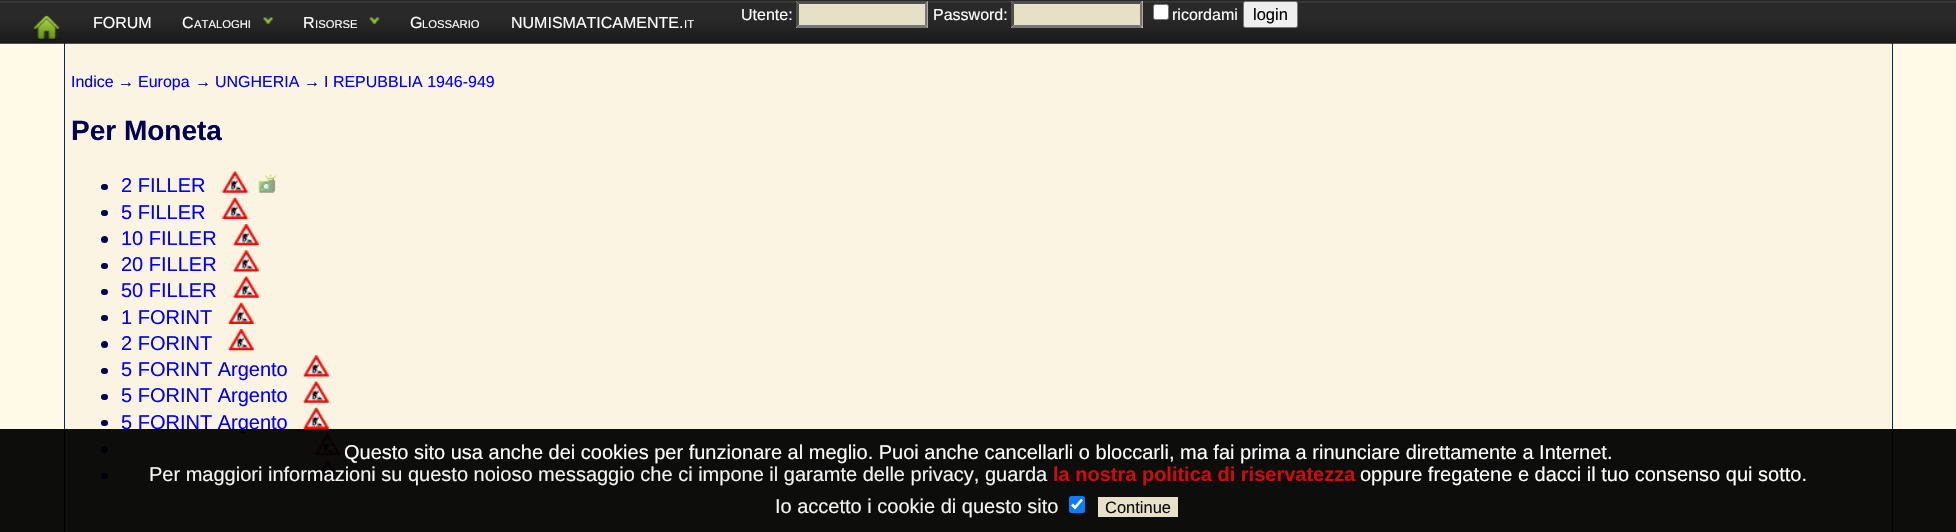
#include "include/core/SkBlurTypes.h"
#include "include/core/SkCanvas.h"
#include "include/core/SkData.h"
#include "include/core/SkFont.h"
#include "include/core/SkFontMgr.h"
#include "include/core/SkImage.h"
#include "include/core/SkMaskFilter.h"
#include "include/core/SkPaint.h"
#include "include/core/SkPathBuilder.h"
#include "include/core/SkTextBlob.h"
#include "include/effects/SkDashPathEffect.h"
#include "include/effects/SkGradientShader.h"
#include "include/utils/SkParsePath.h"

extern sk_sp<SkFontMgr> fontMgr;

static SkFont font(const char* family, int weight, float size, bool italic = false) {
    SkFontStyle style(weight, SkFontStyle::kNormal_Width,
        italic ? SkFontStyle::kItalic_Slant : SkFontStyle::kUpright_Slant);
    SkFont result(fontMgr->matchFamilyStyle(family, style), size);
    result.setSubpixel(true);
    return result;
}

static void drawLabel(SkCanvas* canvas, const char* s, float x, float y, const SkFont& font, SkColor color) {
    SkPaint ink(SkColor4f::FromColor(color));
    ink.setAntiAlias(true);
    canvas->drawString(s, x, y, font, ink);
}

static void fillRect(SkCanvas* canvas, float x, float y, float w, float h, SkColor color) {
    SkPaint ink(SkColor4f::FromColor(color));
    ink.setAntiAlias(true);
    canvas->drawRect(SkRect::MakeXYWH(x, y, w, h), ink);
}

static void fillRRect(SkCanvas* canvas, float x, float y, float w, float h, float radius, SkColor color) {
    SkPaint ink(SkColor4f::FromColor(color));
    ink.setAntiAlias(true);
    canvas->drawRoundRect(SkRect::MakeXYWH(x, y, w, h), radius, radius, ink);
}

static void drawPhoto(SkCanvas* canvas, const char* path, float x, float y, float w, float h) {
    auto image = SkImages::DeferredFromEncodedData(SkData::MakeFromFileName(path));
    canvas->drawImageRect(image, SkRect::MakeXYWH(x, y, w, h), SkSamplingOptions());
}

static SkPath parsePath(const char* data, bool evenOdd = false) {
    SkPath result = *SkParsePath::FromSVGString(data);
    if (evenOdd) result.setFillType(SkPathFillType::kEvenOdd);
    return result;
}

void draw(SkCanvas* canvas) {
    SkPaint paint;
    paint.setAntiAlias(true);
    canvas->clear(0xFFFFF9E8);
    fillRect(canvas, 65, 43, 1827, 489, 0xFFFCF4E3);
    paint.setStroke(true);
    paint.setStrokeWidth(1);
    paint.setColor(0xFF072A66);
    canvas->drawRect(SkRect::MakeXYWH(64.5f, -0.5f, 1828, 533), paint);
    drawPhoto(canvas, "assets/img1.png", 0, 0, 1956, 44);
    drawPhoto(canvas, "assets/img2.png", 33, 15, 27, 26);
    SkFont font1 = font("Liberation Sans", 400, 16);
    drawLabel(canvas, "FORUM", 93, 28, font1, 0xFFFFFFFF);
    drawLabel(canvas, "C", 182, 28, font1, 0xFFFFFFFF);
    SkFont font2 = font("Liberation Sans", 400, 11.25f);
    drawLabel(canvas, "ATALOGHI", 194, 28, font2, 0xFFFFFFFF);
    drawPhoto(canvas, "assets/img3.png", 263, 17, 11, 7);
    drawLabel(canvas, "R", 303, 28, font1, 0xFFFFFFFF);
    drawLabel(canvas, "ISORSE", 315, 28, font2, 0xFFFFFFFF);
    drawPhoto(canvas, "assets/img4.png", 369, 17, 11, 7);
    drawLabel(canvas, "G", 410, 28, font1, 0xFFFFFFFF);
    drawLabel(canvas, "LOSSARIO", 422, 28, font2, 0xFFFFFFFF);
    drawLabel(canvas, "NUMISMATICAMENTE.", 511, 28, font1, 0xFFFFFFFF);
    drawLabel(canvas, "IT", 684, 28, font2, 0xFFFFFFFF);
    drawLabel(canvas, "Utente:", 741, 20, font1, 0xFFFFFFFF);
    fillRect(canvas, 796, 1, 132, 27, 0xFFE6E0C6);
    paint.setStroke(false);
    paint.setColor(0xFF4F4F4F);
    canvas->drawPath(parsePath("M796 1H928L925 4H799Z"), paint);
    paint.setColor(0xFF767676);
    canvas->drawPath(parsePath("M927.5 1V27.5L925 25V4Z"), paint);
    canvas->drawPath(parsePath("M928 28H796L799 25H925Z"), paint);
    paint.setColor(0xFF4F4F4F);
    canvas->drawPath(parsePath("M796 27.5V1L799 4V25Z"), paint);
    drawLabel(canvas, "Password:", 933, 20, font1, 0xFFFFFFFF);
    fillRect(canvas, 1011, 1, 132, 27, 0xFFE6E0C6);
    canvas->drawPath(parsePath("M1011 1H1142L1140 4H1014Z"), paint);
    paint.setColor(0xFF767676);
    canvas->drawPath(parsePath("M1142.5 1V27.5L1140 25V4Z"), paint);
    canvas->drawPath(parsePath("M1142 28H1011L1014 25H1140Z"), paint);
    paint.setColor(0xFF4F4F4F);
    canvas->drawPath(parsePath("M1011 27.5V1L1014 4V25Z"), paint);
    paint.setColor(0xFFFFFFFF);
    canvas->drawRoundRect(SkRect::MakeXYWH(1153.5f, 4.5f, 15, 15), 2, 2, paint);
    paint.setStroke(true);
    paint.setColor(0xFF767676);
    canvas->drawRoundRect(SkRect::MakeXYWH(1153.5f, 4.5f, 15, 15), 2, 2, paint);
    drawLabel(canvas, "ricordami", 1172, 20, font1, 0xFFFFFFFF);
    paint.setStroke(false);
    paint.setColor(0xFFEFEFEF);
    canvas->drawRoundRect(SkRect::MakeXYWH(1243.5f, 1.5f, 54, 26), 2, 2, paint);
    paint.setStroke(true);
    paint.setColor(0xFF767676);
    canvas->drawRoundRect(SkRect::MakeXYWH(1243.5f, 1.5f, 54, 26), 2, 2, paint);
    SkFont font3 = font("Liberation Sans", 400, 16.5f);
    drawLabel(canvas, "login", 1253, 20, font3, 0xFF000000);
    drawLabel(canvas, "Indice", 71, 87, font1, 0xFF0000F0);
    drawLabel(canvas, "→", 118, 87, font1, 0xFF000055);
    drawLabel(canvas, "Europa", 138, 87, font1, 0xFF0000F0);
    drawLabel(canvas, "→", 195, 87, font1, 0xFF000055);
    drawLabel(canvas, "UNGHERIA", 215, 87, font1, 0xFF0000F0);
    drawLabel(canvas, "→", 304, 87, font1, 0xFF000055);
    drawLabel(canvas, "I REPUBBLIA 1946-949", 324, 87, font1, 0xFF0000F0);
    SkFont font4 = font("Liberation Sans", 700, 28);
    drawLabel(canvas, "Per Moneta", 71, 140, font4, 0xFF000055);
    fillRRect(canvas, 101, 184, 7, 6, 3, 0xFF000055);
    SkFont font5 = font("Liberation Sans", 400, 20);
    drawLabel(canvas, "2 FILLER", 121, 192, font5, 0xFF0000F0);
    drawPhoto(canvas, "assets/img5.png", 222, 171, 26, 22);
    drawPhoto(canvas, "assets/img6.png", 258, 174, 19, 19);
    fillRRect(canvas, 101, 210, 7, 6, 3, 0xFF000055);
    drawLabel(canvas, "5 FILLER", 121, 219, font5, 0xFF0000F0);
    drawPhoto(canvas, "assets/img7.png", 222, 197, 26, 22);
    paint.setStroke(false);
    paint.setColor(0xFF000055);
    canvas->drawCircle(104.5f, 239.5f, 3.5f, paint);
    drawLabel(canvas, "10 FILLER", 121, 245, font5, 0xFF0000F0);
    drawPhoto(canvas, "assets/img8.png", 233, 224, 26, 22);
    fillRRect(canvas, 101, 263, 7, 6, 3, 0xFF000055);
    drawLabel(canvas, "20 FILLER", 121, 271, font5, 0xFF0000F0);
    drawPhoto(canvas, "assets/img9.png", 233, 250, 26, 22);
    fillRRect(canvas, 101, 289, 7, 6, 3, 0xFF000055);
    drawLabel(canvas, "50 FILLER", 121, 297, font5, 0xFF0000F0);
    drawPhoto(canvas, "assets/img10.png", 233, 276, 26, 22);
    fillRRect(canvas, 101, 315, 7, 6, 3, 0xFF000055);
    drawLabel(canvas, "1 FORINT", 121, 324, font5, 0xFF0000F0);
    drawPhoto(canvas, "assets/img11.png", 228, 302, 26, 22);
    canvas->drawCircle(104.5f, 344.5f, 3.5f, paint);
    drawLabel(canvas, "2 FORINT", 121, 350, font5, 0xFF0000F0);
    drawPhoto(canvas, "assets/img8.png", 228, 329, 26, 22);
    fillRRect(canvas, 101, 368, 7, 6, 3, 0xFF000055);
    drawLabel(canvas, "5 FORINT Argento", 121, 376, font5, 0xFF0000F0);
    drawPhoto(canvas, "assets/img9.png", 303, 355, 26, 22);
    fillRRect(canvas, 101, 394, 7, 6, 3, 0xFF000055);
    drawLabel(canvas, "5 FORINT Argento", 121, 402, font5, 0xFF0000F0);
    drawPhoto(canvas, "assets/img10.png", 303, 381, 26, 22);
    fillRRect(canvas, 101, 420, 7, 6, 3, 0xFF000055);
    drawLabel(canvas, "5 FORINT Argento", 121, 429, font5, 0xFF0000F0);
    drawPhoto(canvas, "assets/img12.png", 303, 407, 26, 22);
    canvas->drawCircle(104.5f, 449.5f, 3.5f, paint);
    drawPhoto(canvas, "assets/img13.png", 315, 434, 25, 22);
    fillRRect(canvas, 101, 473, 7, 6, 3, 0xFF000055);
    drawPhoto(canvas, "assets/img14.png", 315, 460, 25, 22);
    fillRect(canvas, 0, 429, 1956, 103, 0xF2000000);
    drawLabel(canvas, "Questo sito usa anche dei cookies per funzionare al meglio. Puoi anche cancellarli o bloccarli, ma fai prima a rinunciare direttamente a Internet.", 344, 459, font5, 0xFFFFFFFF);
    drawLabel(canvas, "Per maggiori informazioni su questo noioso messaggio che ci impone il garamte delle privacy, guarda", 149, 481, font5, 0xFFF3F3F3);
    SkFont font6 = font("Liberation Sans", 700, 20);
    drawLabel(canvas, "la nostra politica di riservatezza", 1053, 481, font6, 0xFFCD0C0B);
    drawLabel(canvas, "oppure fregatene e dacci il tuo consenso qui sotto.", 1360, 481, font5, 0xFFFFFFFF);
    drawLabel(canvas, "Io accetto i cookie di questo sito", 775, 513, font5, 0xFFF3F3F3);
    fillRRect(canvas, 1069, 496, 16, 17, 2.5f, 0xFF0D7BFE);
    paint.setStroke(true);
    paint.setStrokeWidth(2.6f);
    paint.setColor(0xFFFFFEFE);
    canvas->drawPath(parsePath("M1072 504.5L1075 507.5L1082 499.5"), paint);
    fillRect(canvas, 1098, 497, 80, 20, 0xFFE7E1C7);
    drawLabel(canvas, "Continue", 1105, 513, font3, 0xFF0D0C0B);
}
